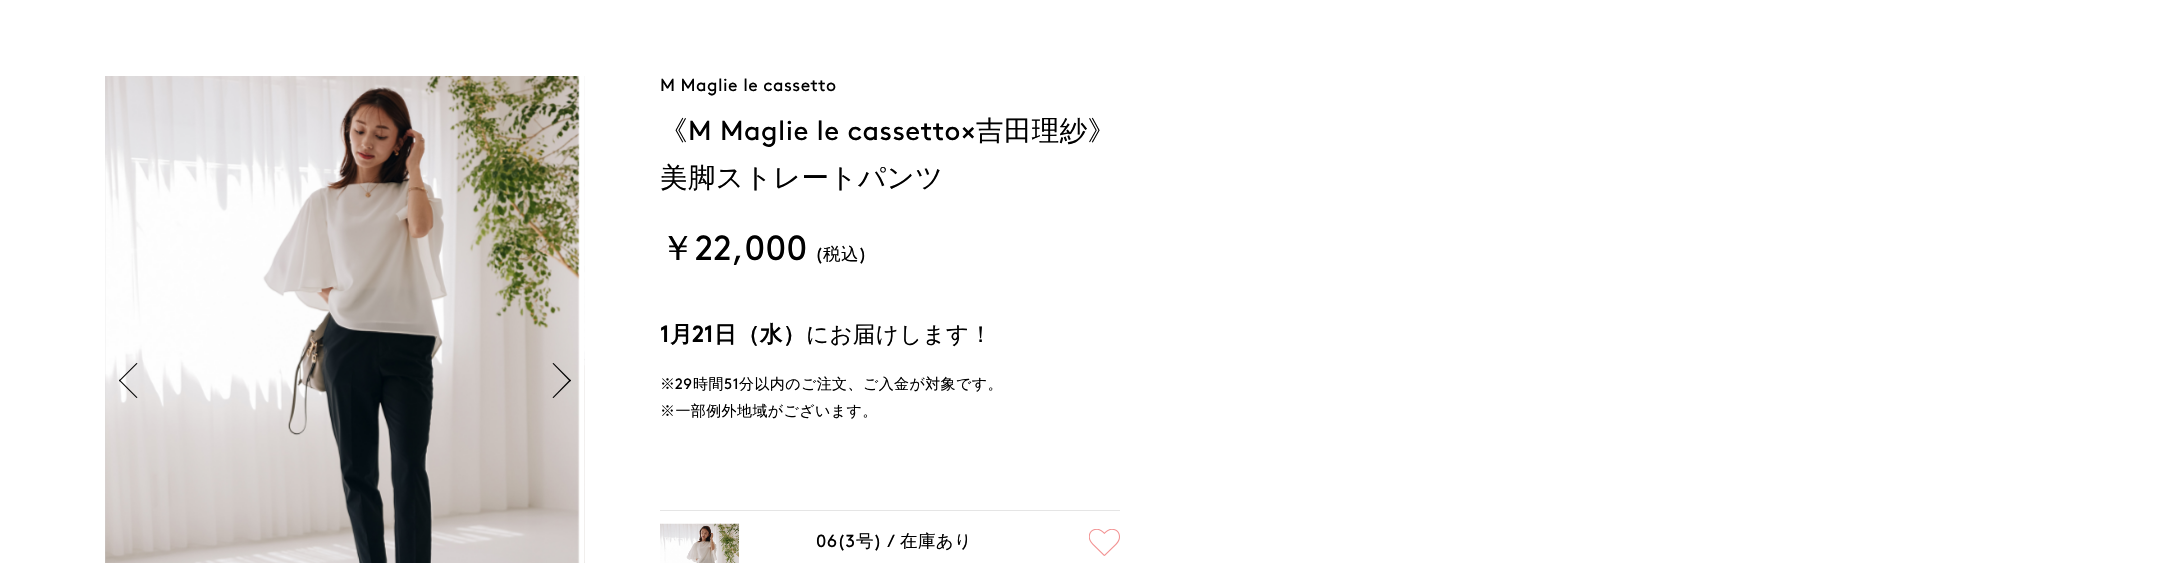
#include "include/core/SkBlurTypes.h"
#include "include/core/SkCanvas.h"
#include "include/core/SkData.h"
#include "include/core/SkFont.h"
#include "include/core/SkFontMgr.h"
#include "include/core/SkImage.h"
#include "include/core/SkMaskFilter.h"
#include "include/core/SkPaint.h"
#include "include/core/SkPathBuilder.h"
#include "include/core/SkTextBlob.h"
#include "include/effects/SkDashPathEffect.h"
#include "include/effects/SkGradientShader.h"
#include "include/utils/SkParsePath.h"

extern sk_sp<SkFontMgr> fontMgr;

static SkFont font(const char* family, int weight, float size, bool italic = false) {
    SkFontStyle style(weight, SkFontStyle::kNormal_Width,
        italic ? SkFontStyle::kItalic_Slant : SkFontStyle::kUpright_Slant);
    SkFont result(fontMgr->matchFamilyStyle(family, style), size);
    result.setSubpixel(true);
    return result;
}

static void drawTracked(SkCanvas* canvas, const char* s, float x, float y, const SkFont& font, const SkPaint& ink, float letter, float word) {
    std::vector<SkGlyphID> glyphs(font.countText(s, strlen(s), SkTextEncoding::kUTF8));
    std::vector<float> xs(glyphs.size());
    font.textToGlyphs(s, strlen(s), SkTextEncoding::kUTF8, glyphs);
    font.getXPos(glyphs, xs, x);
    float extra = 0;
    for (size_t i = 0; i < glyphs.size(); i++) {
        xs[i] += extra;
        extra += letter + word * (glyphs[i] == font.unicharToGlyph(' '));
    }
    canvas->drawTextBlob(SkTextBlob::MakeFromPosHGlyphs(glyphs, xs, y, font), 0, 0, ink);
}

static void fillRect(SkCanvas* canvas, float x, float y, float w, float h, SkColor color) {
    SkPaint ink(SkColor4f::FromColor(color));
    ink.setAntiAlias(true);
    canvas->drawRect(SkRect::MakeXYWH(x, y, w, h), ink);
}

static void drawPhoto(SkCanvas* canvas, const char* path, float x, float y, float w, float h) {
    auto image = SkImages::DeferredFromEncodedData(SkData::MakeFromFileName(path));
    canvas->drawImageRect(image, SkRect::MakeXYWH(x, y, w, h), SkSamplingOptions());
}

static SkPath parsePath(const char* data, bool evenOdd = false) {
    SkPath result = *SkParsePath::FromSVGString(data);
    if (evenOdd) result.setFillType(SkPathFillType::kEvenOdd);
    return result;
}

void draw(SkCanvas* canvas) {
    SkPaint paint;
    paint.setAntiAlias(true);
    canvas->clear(0xFFFFFFFF);
    drawPhoto(canvas, "assets/img1.png", 105, 76, 1, 487);
    drawPhoto(canvas, "assets/img2.png", 105, 76, 475, 487);
    drawPhoto(canvas, "assets/img3.png", 584, 76, 1, 487);
    paint.setColor(0xFF000000);
    canvas->drawPath(parsePath("M136.5 398L119 380.5L119.5 379.5L137.5 397.5Z"), paint);
    canvas->drawPath(parsePath("M119.5 381.5L119 380.5L136.5 363L137.5 363.5Z"), paint);
    canvas->drawPath(parsePath("M553.5 363L571 380.5L570 381.5L552.5 363.5Z"), paint);
    canvas->drawPath(parsePath("M570 379.5L571 380.5L553.5 398L552.5 397.5Z"), paint);
    SkFont font1 = font("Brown", 400, 17.5f);
    drawTracked(canvas, "M Maglie le cassetto", 660, 91, font1, paint, 0.4f, 0);
    SkFont font2 = font("WenQuanYi Zen Hei", 500, 27.5f);
    drawTracked(canvas, "《", 660, 140, font2, paint, 0.4f, 0);
    SkFont font3 = font("Brown", 400, 27.5f);
    drawTracked(canvas, "M Maglie le cassetto×", 688, 140, font3, paint, 0.4f, 0);
    drawTracked(canvas, "吉田理紗》", 976, 140, font2, paint, 0.4f, 0);
    drawTracked(canvas, "美脚ストレートパンツ", 660, 187, font2, paint, 0.4f, 0);
    SkFont font4 = font("WenQuanYi Zen Hei", 500, 35);
    drawTracked(canvas, "￥", 660, 260, font4, paint, 0.4f, 0);
    SkFont font5 = font("Brown", 400, 35);
    drawTracked(canvas, "22,000", 695, 260, font5, paint, 0.4f, 0);
    drawTracked(canvas, "(", 815, 260, font1, paint, 0.4f, 0);
    SkFont font6 = font("WenQuanYi Zen Hei", 500, 17.5f);
    drawTracked(canvas, "税込", 823, 260, font6, paint, 0.4f, 0);
    drawTracked(canvas, ")", 859, 260, font1, paint, 0.4f, 0);
    SkFont font7 = font("Brown", 700, 22.5f);
    drawTracked(canvas, "1", 660, 342, font7, paint, 0.4f, 0);
    SkFont font8 = font("WenQuanYi Zen Hei", 700, 22.5f);
    drawTracked(canvas, "月", 670, 342, font8, paint, 0.4f, 0);
    drawTracked(canvas, "21", 692, 342, font7, paint, 0.4f, 0);
    drawTracked(canvas, "日（水）", 714, 342, font8, paint, 0.4f, 0);
    SkFont font9 = font("WenQuanYi Zen Hei", 500, 22.5f);
    drawTracked(canvas, "にお届けします！", 806, 342, font9, paint, 0.4f, 0);
    SkFont font10 = font("WenQuanYi Zen Hei", 500, 15);
    drawTracked(canvas, "※", 660, 389, font10, paint, 0.4f, 0);
    SkFont font11 = font("Brown", 400, 15);
    drawTracked(canvas, "29", 675, 389, font11, paint, 0.4f, 0);
    drawTracked(canvas, "時間", 693, 389, font10, paint, 0.4f, 0);
    drawTracked(canvas, "51", 724, 389, font11, paint, 0.4f, 0);
    drawTracked(canvas, "分以内のご注文、ご入金が対象です。", 739, 389, font10, paint, 0.4f, 0);
    drawTracked(canvas, "※一部例外地域がございます。", 660, 416, font10, paint, 0.4f, 0);
    fillRect(canvas, 660, 510, 460, 1, 0xFFE5E5E5);
    drawPhoto(canvas, "assets/img4.png", 660, 523, 80, 40);
    drawTracked(canvas, "06(3", 816, 547, font1, paint, 0.4f, 0);
    drawTracked(canvas, "号", 856, 547, font6, paint, 0.4f, 0);
    drawTracked(canvas, ") /", 874, 547, font1, paint, 0.4f, 0);
    drawTracked(canvas, "在庫あり", 900, 547, font6, paint, 0.4f, 0);
    drawPhoto(canvas, "assets/img5.png", 1089, 529, 31, 27);
}
